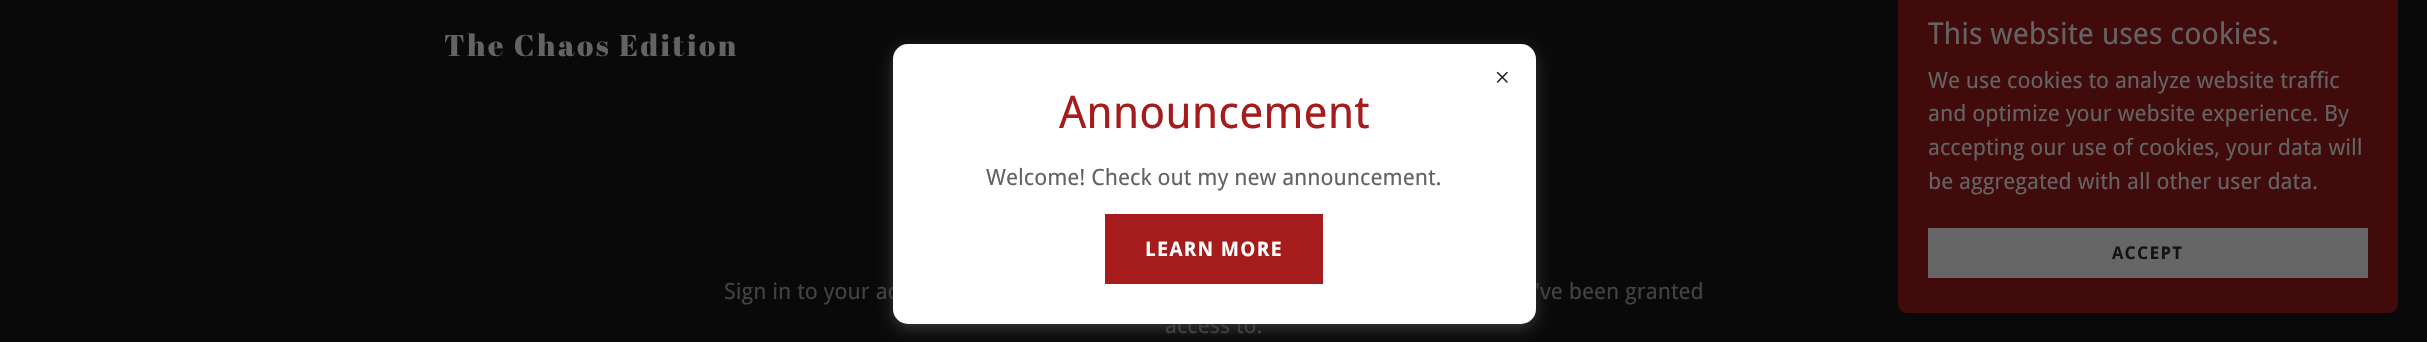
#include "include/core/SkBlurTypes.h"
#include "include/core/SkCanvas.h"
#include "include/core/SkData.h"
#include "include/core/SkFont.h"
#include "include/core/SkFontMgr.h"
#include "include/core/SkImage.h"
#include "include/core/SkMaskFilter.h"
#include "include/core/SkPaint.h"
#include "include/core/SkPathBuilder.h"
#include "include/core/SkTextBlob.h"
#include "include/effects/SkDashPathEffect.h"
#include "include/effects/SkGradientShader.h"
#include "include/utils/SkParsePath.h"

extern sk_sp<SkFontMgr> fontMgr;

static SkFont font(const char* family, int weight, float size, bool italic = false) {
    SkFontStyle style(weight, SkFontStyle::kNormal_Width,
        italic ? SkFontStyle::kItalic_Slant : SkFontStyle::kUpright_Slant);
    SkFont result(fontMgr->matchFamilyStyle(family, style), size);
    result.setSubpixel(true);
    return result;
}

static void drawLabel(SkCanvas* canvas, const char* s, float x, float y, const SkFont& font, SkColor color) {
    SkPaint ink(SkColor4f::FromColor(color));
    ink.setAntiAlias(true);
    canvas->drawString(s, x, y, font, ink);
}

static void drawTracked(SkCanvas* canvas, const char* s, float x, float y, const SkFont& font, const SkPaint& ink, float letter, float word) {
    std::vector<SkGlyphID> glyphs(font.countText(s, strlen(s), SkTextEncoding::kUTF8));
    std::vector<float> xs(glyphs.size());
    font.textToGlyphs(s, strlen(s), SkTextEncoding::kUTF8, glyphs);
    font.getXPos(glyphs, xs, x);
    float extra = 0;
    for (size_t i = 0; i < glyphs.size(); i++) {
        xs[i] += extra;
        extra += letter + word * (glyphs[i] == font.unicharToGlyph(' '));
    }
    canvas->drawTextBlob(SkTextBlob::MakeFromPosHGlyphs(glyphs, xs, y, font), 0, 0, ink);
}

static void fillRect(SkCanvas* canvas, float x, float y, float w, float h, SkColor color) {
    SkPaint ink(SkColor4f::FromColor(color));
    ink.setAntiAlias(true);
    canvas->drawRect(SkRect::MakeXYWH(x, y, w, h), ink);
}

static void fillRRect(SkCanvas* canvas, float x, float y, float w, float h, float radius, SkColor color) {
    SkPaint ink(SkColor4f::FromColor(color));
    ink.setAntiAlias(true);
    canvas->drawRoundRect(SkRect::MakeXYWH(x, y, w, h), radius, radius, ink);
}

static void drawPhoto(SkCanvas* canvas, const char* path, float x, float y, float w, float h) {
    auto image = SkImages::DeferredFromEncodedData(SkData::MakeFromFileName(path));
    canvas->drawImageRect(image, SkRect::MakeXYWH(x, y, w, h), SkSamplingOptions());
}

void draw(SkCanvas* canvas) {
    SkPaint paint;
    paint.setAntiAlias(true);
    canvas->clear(0xFF090909);
    SkFont font1 = font("Abril Fatface", 400, 30);
    paint.setColor(0xFF636363);
    drawTracked(canvas, "The Chaos Edition", 444, 56, font1, paint, 2.5f, 0);
    fillRRect(canvas, 1898, -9, 500, 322, 9, 0xFF420B0B);
    SkFont font2 = font("Droid Sans", 400, 30);
    drawLabel(canvas, "This website uses cookies.", 1928, 44, font2, 0xFF636363);
    SkFont font3 = font("Droid Sans", 400, 22.5f);
    drawLabel(canvas, "We use cookies to analyze website traffic", 1928, 88, font3, 0xFF636363);
    drawLabel(canvas, "and optimize your website experience. By", 1928, 121, font3, 0xFF636363);
    drawLabel(canvas, "accepting our use of cookies, your data will", 1928, 155, font3, 0xFF636363);
    drawLabel(canvas, "be aggregated with all other user data.", 1928, 189, font3, 0xFF636363);
    fillRect(canvas, 1928, 228, 440, 50, 0xFF666666);
    SkFont font4 = font("Droid Sans", 700, 17.5f);
    paint.setColor(0xFF131313);
    drawTracked(canvas, "ACCEPT", 2112, 259, font4, paint, 1.25f, 0);
    paint.setColor(0x66757575);
    paint.setMaskFilter(SkMaskFilter::MakeBlur(kNormal_SkBlurStyle, 7.5f));
    canvas->drawRoundRect(SkRect::MakeXYWH(893, 49, 643, 280), 15, 15, paint);
    paint.setMaskFilter(nullptr);
    drawLabel(canvas, "Sign in to your ac", 724, 299, font3, 0xFF424242);
    drawLabel(canvas, "access to.", 1165, 333, font3, 0xFF424242);
    fillRRect(canvas, 893, 44, 643, 280, 15, 0xFFFFFFFF);
    drawPhoto(canvas, "assets/img1.png", 1496, 71, 12, 12);
    SkFont font5 = font("Droid Sans", 400, 45);
    drawLabel(canvas, "Announcement", 1059, 128, font5, 0xFFA61C1C);
    drawLabel(canvas, "Welcome! Check out my new announcement.", 986, 185, font3, 0xFF636363);
    fillRect(canvas, 1105, 214, 218, 70, 0xFFA61C1C);
    SkFont font6 = font("Droid Sans", 700, 20);
    paint.setColor(0xFFFFFFFF);
    drawTracked(canvas, "LEARN MORE", 1145, 256, font6, paint, 1.25f, 0);
    drawLabel(canvas, "'ve been granted", 1535, 299, font3, 0xFF424242);
}
